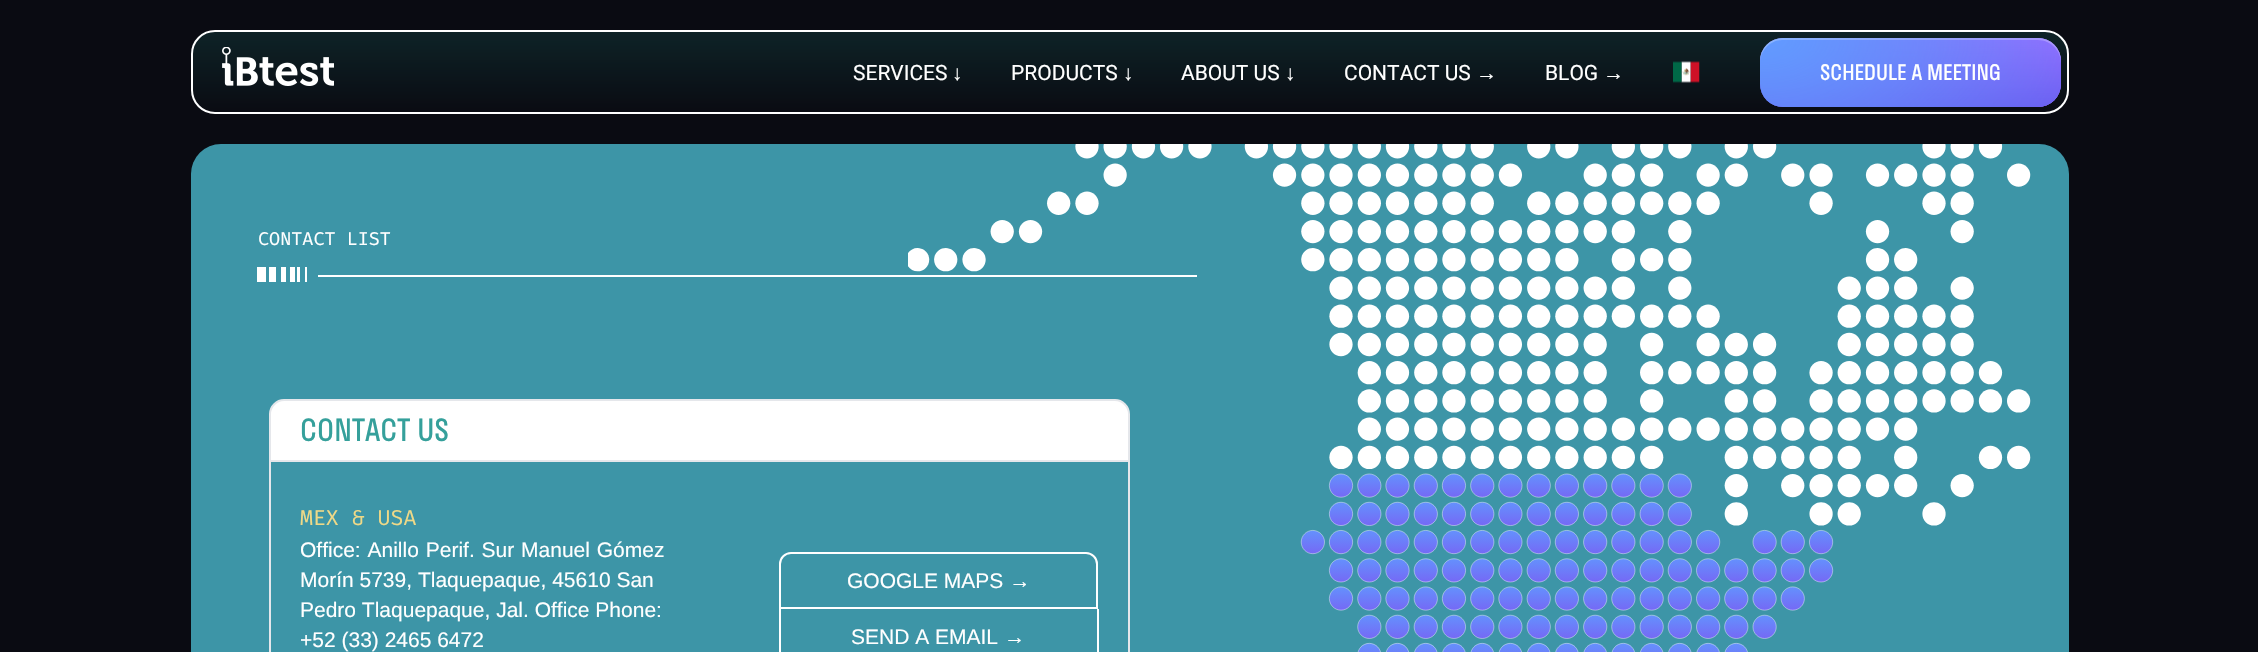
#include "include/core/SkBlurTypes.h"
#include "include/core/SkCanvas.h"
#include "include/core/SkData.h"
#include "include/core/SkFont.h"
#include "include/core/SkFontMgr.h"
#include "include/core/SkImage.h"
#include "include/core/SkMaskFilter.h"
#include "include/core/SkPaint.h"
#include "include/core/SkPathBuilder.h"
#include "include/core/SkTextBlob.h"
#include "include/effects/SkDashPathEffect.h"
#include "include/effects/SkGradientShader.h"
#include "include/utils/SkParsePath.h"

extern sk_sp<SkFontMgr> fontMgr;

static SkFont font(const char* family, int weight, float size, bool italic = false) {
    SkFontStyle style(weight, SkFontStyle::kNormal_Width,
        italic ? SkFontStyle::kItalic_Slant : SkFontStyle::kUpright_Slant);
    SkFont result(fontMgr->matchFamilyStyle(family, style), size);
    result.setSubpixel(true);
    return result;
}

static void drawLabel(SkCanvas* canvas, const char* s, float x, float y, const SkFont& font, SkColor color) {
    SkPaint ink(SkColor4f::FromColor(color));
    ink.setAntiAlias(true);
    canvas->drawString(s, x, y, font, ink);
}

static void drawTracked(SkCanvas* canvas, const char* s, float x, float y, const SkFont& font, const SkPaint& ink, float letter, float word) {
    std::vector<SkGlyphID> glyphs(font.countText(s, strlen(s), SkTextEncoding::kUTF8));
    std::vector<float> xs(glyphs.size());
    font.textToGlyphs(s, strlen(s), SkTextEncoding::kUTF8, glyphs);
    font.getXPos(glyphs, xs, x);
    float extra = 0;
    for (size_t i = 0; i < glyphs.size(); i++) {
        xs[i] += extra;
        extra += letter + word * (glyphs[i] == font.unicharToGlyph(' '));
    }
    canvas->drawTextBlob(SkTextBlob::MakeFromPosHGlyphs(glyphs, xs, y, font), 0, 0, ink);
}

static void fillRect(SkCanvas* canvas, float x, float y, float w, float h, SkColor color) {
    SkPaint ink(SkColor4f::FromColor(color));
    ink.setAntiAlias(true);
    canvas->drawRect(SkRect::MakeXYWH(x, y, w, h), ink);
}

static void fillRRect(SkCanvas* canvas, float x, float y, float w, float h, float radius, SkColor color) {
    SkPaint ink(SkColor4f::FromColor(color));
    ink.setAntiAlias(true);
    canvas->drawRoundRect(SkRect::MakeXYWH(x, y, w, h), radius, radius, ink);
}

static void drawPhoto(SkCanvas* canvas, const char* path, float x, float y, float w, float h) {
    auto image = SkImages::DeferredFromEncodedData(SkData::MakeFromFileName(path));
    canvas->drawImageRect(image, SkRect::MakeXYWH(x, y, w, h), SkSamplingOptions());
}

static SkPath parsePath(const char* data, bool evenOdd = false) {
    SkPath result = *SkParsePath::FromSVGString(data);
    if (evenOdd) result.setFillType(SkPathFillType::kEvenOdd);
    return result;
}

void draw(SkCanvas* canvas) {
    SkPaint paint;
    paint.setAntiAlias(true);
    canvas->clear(0xFF0A0B12);
    canvas->save();
    canvas->clipPath(parsePath("M215 30H2045C2058.5 30 2069 40.5 2069 54V90C2069 103.5 2058.5 114 2045 114H215C201.5 114 191 103.5 191 90V54C191 40.5 201.5 30 215 30Z"), true);
    {
        const SkColor colors[] = {0xFF0E2327, 0xFF0A0B12};
        const float stops[] = {0, 1};
        const SkPoint ends[] = {{1130, 31}, {1130, 113}};
        paint.setShader(SkGradientShader::MakeLinear(ends, colors, stops, 2, SkTileMode::kClamp));
        paint.setAlpha(255);
    }
    canvas->drawRect(SkRect::MakeXYWH(191, 32, 1878, 81), paint);
    canvas->restore();
    paint.setStroke(true);
    paint.setStrokeWidth(2);
    paint.setShader(nullptr);
    paint.setColor(0xFFFFFFFF);
    canvas->drawRoundRect(SkRect::MakeXYWH(192, 31, 1876, 82), 23, 23, paint);
    drawPhoto(canvas, "assets/img1.png", 222, 47, 112, 39);
    SkFont font1 = font("Roboto", 400, 21);
    drawLabel(canvas, "SERVICES", 853, 80, font1, 0xFFFFFFFF);
    SkFont font2 = font("Liberation Sans", 400, 21);
    drawLabel(canvas, "↓", 952, 80, font2, 0xFFFFFFFF);
    drawLabel(canvas, "PRODUCTS", 1011, 80, font1, 0xFFFFFFFF);
    drawLabel(canvas, "↓", 1123, 80, font2, 0xFFFFFFFF);
    drawLabel(canvas, "ABOUT US", 1181, 80, font1, 0xFFFFFFFF);
    drawLabel(canvas, "↓", 1285, 80, font2, 0xFFFFFFFF);
    drawLabel(canvas, "CONTACT US", 1344, 80, font1, 0xFFFFFFFF);
    drawLabel(canvas, "→", 1476, 80, font2, 0xFFFFFFFF);
    drawLabel(canvas, "BLOG", 1545, 80, font1, 0xFFFFFFFF);
    drawLabel(canvas, "→", 1603, 80, font2, 0xFFFFFFFF);
    drawPhoto(canvas, "assets/img2.png", 1673, 61, 27, 22);
    fillRRect(canvas, 1760, 38, 301, 69, 23, 0xFF706EF1);
    paint.setStroke(false);
    {
        const SkColor colors[] = {0x009E61FF, 0xFF9E61FF};
        const float stops[] = {0, 1};
        const SkPoint ends[] = {{1760, 72}, {2061, 72}};
        paint.setShader(SkGradientShader::MakeLinear(ends, colors, stops, 2, SkTileMode::kClamp));
        paint.setAlpha(255);
    }
    canvas->drawRoundRect(SkRect::MakeXYWH(1760, 38, 301, 69), 23, 23, paint);
    {
        const SkColor colors[] = {0x006C52EE, 0xFF6C52EE};
        const float stops[] = {0, 1};
        const SkPoint ends[] = {{1910, 37}, {1910, 107}};
        paint.setShader(SkGradientShader::MakeLinear(ends, colors, stops, 2, SkTileMode::kClamp));
        paint.setAlpha(255);
    }
    canvas->drawRoundRect(SkRect::MakeXYWH(1760, 38, 301, 69), 23, 23, paint);
    {
        const SkColor colors[] = {0xFF619BFF, 0x00619BFF};
        const float stops[] = {0, 1};
        SkMatrix m = SkMatrix::Translate(1760, 38).preScale(399, 226);
        paint.setShader(SkGradientShader::MakeRadial({0, 0}, 1, colors, stops, 2, SkTileMode::kClamp, 0, &m));
        paint.setAlpha(255);
    }
    canvas->drawRoundRect(SkRect::MakeXYWH(1760, 38, 301, 69), 23, 23, paint);
    paint.setShader(nullptr);
    paint.setColor(0x40FFFFFF);
    canvas->drawPath(parsePath("M1782 40H2038C2051 40 2061 51 2061 63V61C2061 48 2051 38 2038 38H1783C1770 38 1760 48 1760 61V63C1760 51 1770 40 1782 40Z"), paint);
    SkFont font3 = font("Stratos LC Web", 400, 21);
    drawLabel(canvas, "SCHEDULE A MEETING", 1820, 80, font3, 0xFFFFFFFF);
    fillRRect(canvas, 191, 144, 1878, 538, 30, 0xFF3D95A7);
    drawPhoto(canvas, "assets/img3.png", 908, 144, 1123, 508);
    SkFont font4 = font("Fira Code", 400, 18);
    drawLabel(canvas, "CONTACT LIST", 258, 245, font4, 0xFFFFFFFF);
    fillRect(canvas, 257, 267, 9, 15, 0xFFFFFFFF);
    fillRect(canvas, 269, 267, 7, 15, 0xFFFFFFFF);
    fillRect(canvas, 281, 267, 5, 15, 0xFFFFFFFF);
    fillRect(canvas, 290, 267, 5, 15, 0xFFFFFFFF);
    fillRect(canvas, 297, 267, 3, 15, 0xFFFFFFFF);
    fillRect(canvas, 305, 267, 2, 15, 0xFFFFFFFF);
    fillRect(canvas, 318, 275, 879, 2, 0xFFFFFFFF);
    paint.setColor(0xFFFFFFFF);
    canvas->drawPath(parsePath("M284 400H1115C1122.5 400 1129 406.5 1129 414V461H270V414C270 406.5 276.5 400 284 400Z"), paint);
    paint.setStroke(true);
    paint.setColor(0xFFE5E7EB);
    canvas->drawPath(parsePath("M284 400H1115C1122.5 400 1129 406.5 1129 414V461H270V414C270 406.5 276.5 400 284 400Z"), paint);
    SkFont font5 = font("Stratos LC Web", 400, 30);
    drawLabel(canvas, "CONTACT US", 300, 441, font5, 0xFF35A09B);
    fillRect(canvas, 1128, 462, 2, 190, 0xFFE5E7EB);
    fillRect(canvas, 269, 462, 2, 190, 0xFFE5E7EB);
    SkFont font6 = font("Fira Code", 400, 21);
    drawLabel(canvas, "MEX & USA", 300, 525, font6, 0xFFEFD987);
    paint.setStroke(false);
    paint.setColor(0xFFFFFFFF);
    drawTracked(canvas, "Office: Anillo Perif. Sur Manuel Gómez", 300, 557, font2, paint, 0, 1);
    drawLabel(canvas, "Morín 5739, Tlaquepaque, 45610 San", 300, 587, font2, 0xFFFFFFFF);
    drawLabel(canvas, "Pedro Tlaquepaque, Jal. Office Phone:", 300, 617, font2, 0xFFFFFFFF);
    drawLabel(canvas, "+52 (33) 2465 6472", 300, 647, font2, 0xFFFFFFFF);
    paint.setStroke(true);
    canvas->drawPath(parsePath("M791 553H1086C1092 553 1097 558 1097 564V608H780V564C780 558 785 553 791 553Z"), paint);
    drawLabel(canvas, "GOOGLE MAPS →", 847, 588, font2, 0xFFFFFFFF);
    fillRect(canvas, 1097, 609, 2, 43, 0xFFFFFFFF);
    fillRect(canvas, 779, 609, 2, 43, 0xFFFFFFFF);
    drawLabel(canvas, "SEND A EMAIL →", 851, 644, font2, 0xFFFFFFFF);
}
